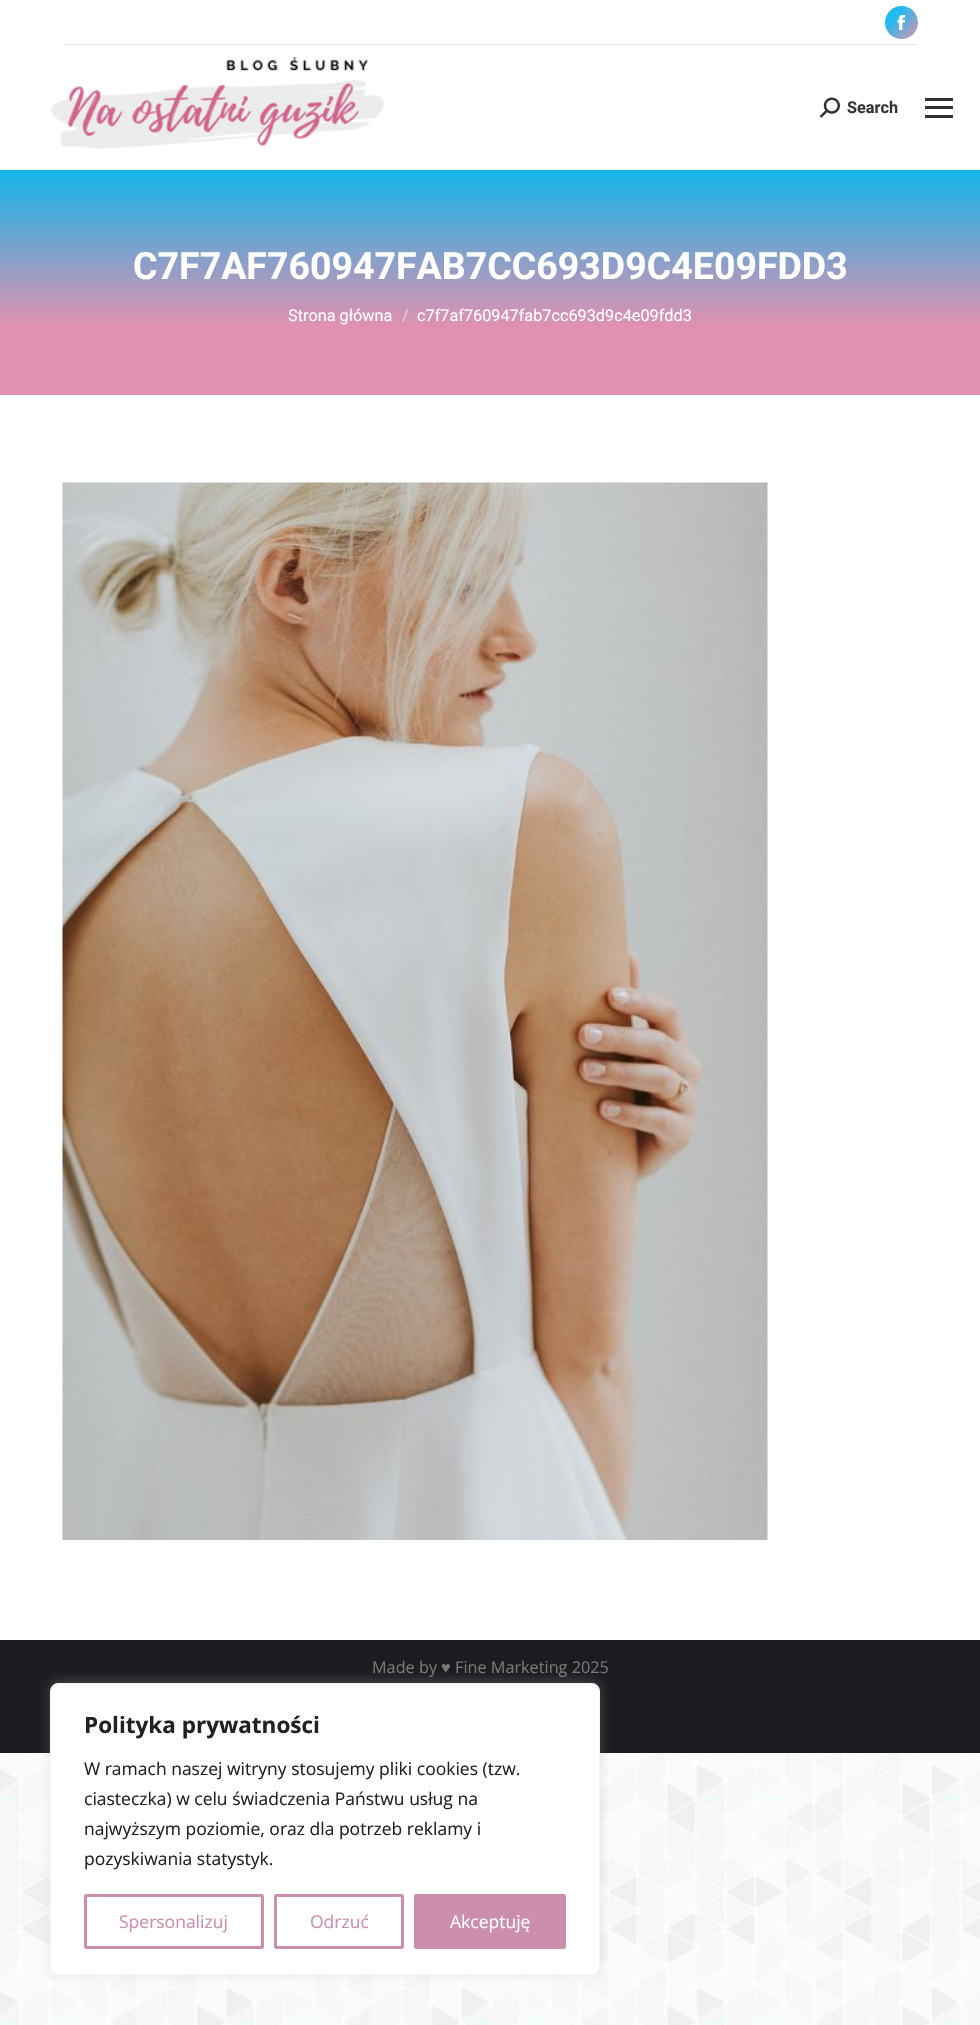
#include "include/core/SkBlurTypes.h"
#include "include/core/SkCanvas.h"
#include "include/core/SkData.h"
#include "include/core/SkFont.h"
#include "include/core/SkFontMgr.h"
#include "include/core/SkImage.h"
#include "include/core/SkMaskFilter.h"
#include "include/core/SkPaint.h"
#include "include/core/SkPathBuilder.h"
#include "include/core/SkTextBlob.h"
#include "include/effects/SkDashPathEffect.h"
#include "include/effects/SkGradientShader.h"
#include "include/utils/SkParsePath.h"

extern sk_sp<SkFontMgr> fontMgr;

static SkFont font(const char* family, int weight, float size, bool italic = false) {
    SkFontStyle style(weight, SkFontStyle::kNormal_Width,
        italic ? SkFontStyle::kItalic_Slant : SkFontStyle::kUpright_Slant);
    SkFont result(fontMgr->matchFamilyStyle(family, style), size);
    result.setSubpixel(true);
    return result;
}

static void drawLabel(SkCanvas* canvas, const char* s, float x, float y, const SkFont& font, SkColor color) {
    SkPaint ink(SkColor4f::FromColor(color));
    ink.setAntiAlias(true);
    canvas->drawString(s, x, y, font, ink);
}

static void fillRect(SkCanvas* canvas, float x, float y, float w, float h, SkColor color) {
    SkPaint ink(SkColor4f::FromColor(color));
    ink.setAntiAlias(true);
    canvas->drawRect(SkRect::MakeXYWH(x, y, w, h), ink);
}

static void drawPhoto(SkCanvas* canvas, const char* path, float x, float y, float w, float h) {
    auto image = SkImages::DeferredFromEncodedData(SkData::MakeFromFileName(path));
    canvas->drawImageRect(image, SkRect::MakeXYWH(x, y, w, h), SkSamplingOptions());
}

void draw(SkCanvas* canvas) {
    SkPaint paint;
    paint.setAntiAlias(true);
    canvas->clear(0xFFFFFFFF);
    drawPhoto(canvas, "assets/img1.png", 0, 1753, 980, 272);
    {
        const SkColor colors[] = {0xFF1EBBF0, 0xFFE291B0};
        const float stops[] = {0.3f, 1};
        const SkPoint ends[] = {{885, 6.3f}, {918, 39}};
        paint.setShader(SkGradientShader::MakeLinear(ends, colors, stops, 2, SkTileMode::kClamp));
        paint.setAlpha(255);
    }
    canvas->drawCircle(901.5f, 22.5f, 16.5f, paint);
    drawPhoto(canvas, "assets/img2.png", 897, 15, 8, 15);
    fillRect(canvas, 63, 44, 855, 1, 0xFFE7E7E7);
    drawPhoto(canvas, "assets/img3.png", 51, 56, 333, 93);
    drawPhoto(canvas, "assets/img4.png", 820, 97, 20, 21);
    SkFont font1 = font("Roboto", 700, 16.25f);
    drawLabel(canvas, "Search", 847, 113, font1, 0xFF333333);
    fillRect(canvas, 925, 98, 28, 3, 0xFF333333);
    fillRect(canvas, 925, 106, 28, 3, 0xFF333333);
    fillRect(canvas, 925, 115, 28, 3, 0xFF333333);
    {
        const SkColor colors[] = {0xFFE291B0, 0xFF12B4EA};
        const float stops[] = {0.3f, 1};
        const SkPoint ends[] = {{490, 395}, {490, 170}};
        paint.setShader(SkGradientShader::MakeLinear(ends, colors, stops, 2, SkTileMode::kClamp));
        paint.setAlpha(255);
    }
    canvas->drawRect(SkRect::MakeXYWH(0, 170, 980, 225), paint);
    SkFont font2 = font("Roboto", 700, 37.5f);
    drawLabel(canvas, "C7F7AF760947FAB7CC693D9C4E09FDD3", 133, 279, font2, 0xFFFFFFFF);
    SkFont font3 = font("Roboto", 400, 16.25f);
    drawLabel(canvas, "Strona główna", 288, 321, font3, 0xFFFFFFFF);
    drawLabel(canvas, "/", 402, 321, font3, 0xFFE9C9DA);
    drawLabel(canvas, "c7f7af760947fab7cc693d9c4e09fdd3", 417, 321, font3, 0xFFFFFFFF);
    drawPhoto(canvas, "assets/img5.png", 62, 482, 706, 1058);
    fillRect(canvas, 0, 1640, 980, 113, 0xFF1A1C20);
    SkFont font4 = font("Open Sans", 400, 16.25f);
    drawLabel(canvas, "Made by", 372, 1673, font4, 0xFF787878);
    SkFont font5 = font("Liberation Sans", 400, 16.25f);
    drawLabel(canvas, "♥", 441, 1673, font5, 0xFF787878);
    drawLabel(canvas, "Fine Marketing 2025", 455, 1673, font4, 0xFF787878);
    paint.setShader(nullptr);
    paint.setColor(0x4DACABAB);
    paint.setMaskFilter(SkMaskFilter::MakeBlur(kNormal_SkBlurStyle, 6));
    canvas->drawRoundRect(SkRect::MakeXYWH(50, 1681, 550, 293), 8, 8, paint);
    paint.setMaskFilter(nullptr);
    paint.setColor(0xFFFFFFFF);
    canvas->drawRoundRect(SkRect::MakeXYWH(50.5f, 1683.5f, 549, 291), 7.5f, 7.5f, paint);
    paint.setStroke(true);
    paint.setStrokeWidth(1);
    paint.setColor(0xFFF4F4F4);
    canvas->drawRoundRect(SkRect::MakeXYWH(50.5f, 1683.5f, 549, 291), 7.5f, 7.5f, paint);
    SkFont font6 = font("Open Sans", 700, 22.5f);
    drawLabel(canvas, "Polityka prywatności", 84, 1733, font6, 0xFF212121);
    SkFont font7 = font("Open Sans", 400, 17.5f);
    drawLabel(canvas, "W ramach naszej witryny stosujemy pliki cookies (tzw.", 84, 1775, font7, 0xFF212121);
    drawLabel(canvas, "ciasteczka) w celu świadczenia Państwu usług na", 84, 1805, font7, 0xFF212121);
    drawLabel(canvas, "najwyższym poziomie, oraz dla potrzeb reklamy i", 84, 1835, font7, 0xFF212121);
    drawLabel(canvas, "pozyskiwania statystyk.", 84, 1865, font7, 0xFF212121);
    paint.setStrokeWidth(3);
    paint.setColor(0xFFCB8EAC);
    canvas->drawRoundRect(SkRect::MakeXYWH(85.5f, 1895.5f, 177, 52), 1, 1, paint);
    drawLabel(canvas, "Spersonalizuj", 119, 1928, font7, 0xFFCB8EAC);
    canvas->drawRoundRect(SkRect::MakeXYWH(275.5f, 1895.5f, 127, 52), 1, 1, paint);
    drawLabel(canvas, "Odrzuć", 310, 1928, font7, 0xFFCB8EAC);
    paint.setStroke(false);
    canvas->drawRoundRect(SkRect::MakeXYWH(415.5f, 1895.5f, 149, 52), 1, 1, paint);
    paint.setStroke(true);
    canvas->drawRoundRect(SkRect::MakeXYWH(415.5f, 1895.5f, 149, 52), 1, 1, paint);
    drawLabel(canvas, "Akceptuję", 450, 1928, font7, 0xFFFFFFFF);
}
